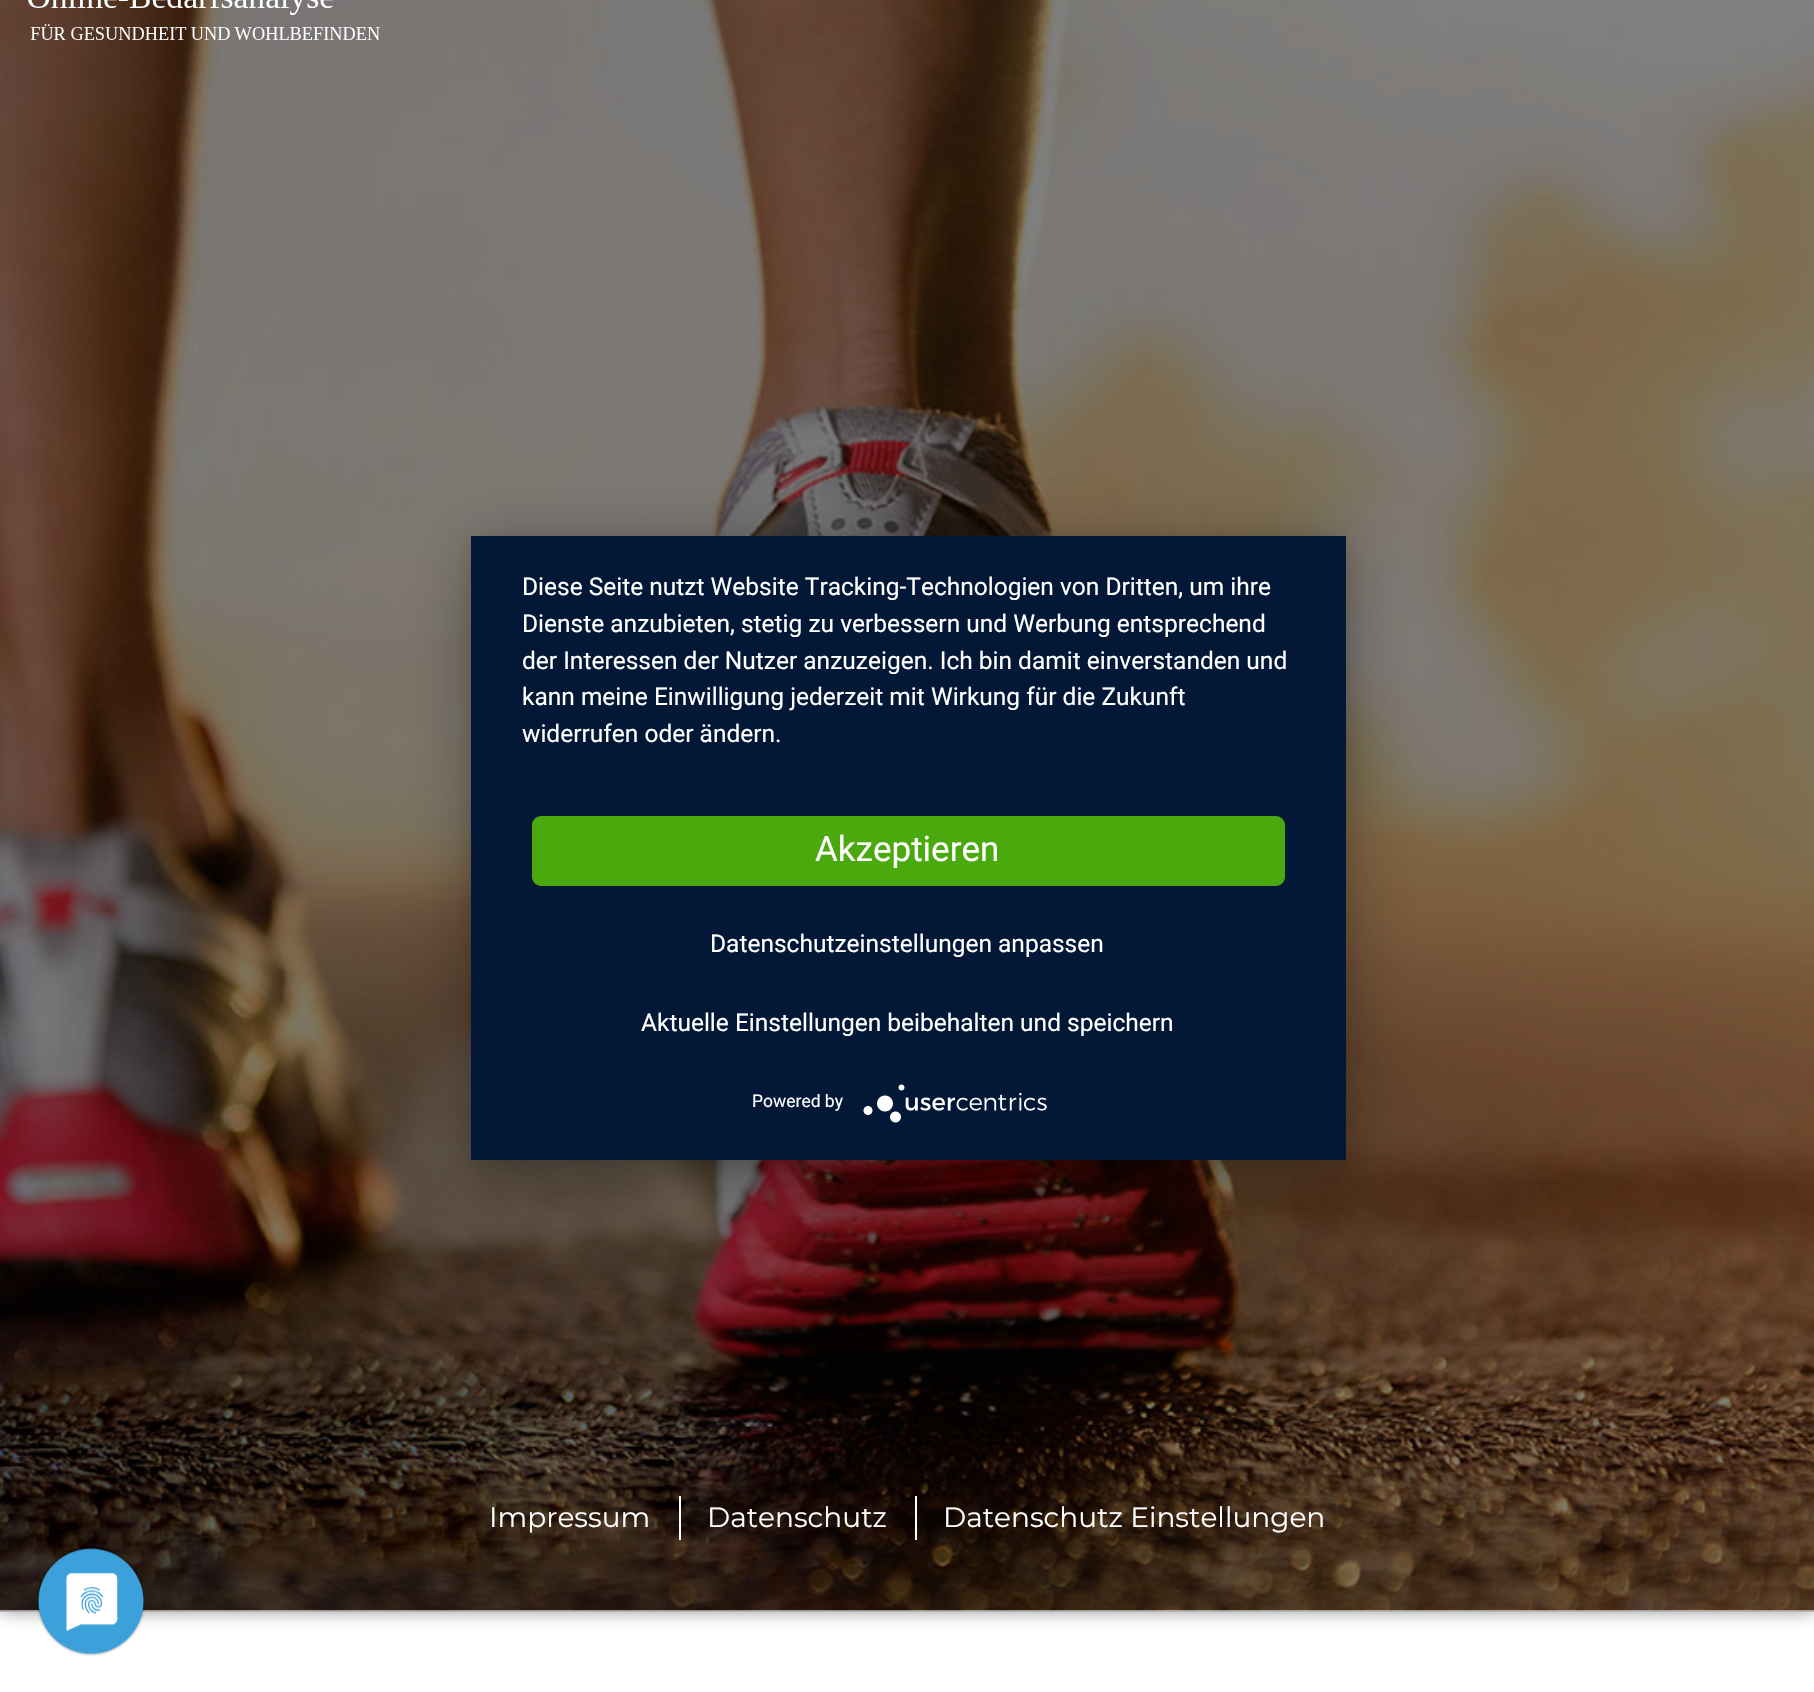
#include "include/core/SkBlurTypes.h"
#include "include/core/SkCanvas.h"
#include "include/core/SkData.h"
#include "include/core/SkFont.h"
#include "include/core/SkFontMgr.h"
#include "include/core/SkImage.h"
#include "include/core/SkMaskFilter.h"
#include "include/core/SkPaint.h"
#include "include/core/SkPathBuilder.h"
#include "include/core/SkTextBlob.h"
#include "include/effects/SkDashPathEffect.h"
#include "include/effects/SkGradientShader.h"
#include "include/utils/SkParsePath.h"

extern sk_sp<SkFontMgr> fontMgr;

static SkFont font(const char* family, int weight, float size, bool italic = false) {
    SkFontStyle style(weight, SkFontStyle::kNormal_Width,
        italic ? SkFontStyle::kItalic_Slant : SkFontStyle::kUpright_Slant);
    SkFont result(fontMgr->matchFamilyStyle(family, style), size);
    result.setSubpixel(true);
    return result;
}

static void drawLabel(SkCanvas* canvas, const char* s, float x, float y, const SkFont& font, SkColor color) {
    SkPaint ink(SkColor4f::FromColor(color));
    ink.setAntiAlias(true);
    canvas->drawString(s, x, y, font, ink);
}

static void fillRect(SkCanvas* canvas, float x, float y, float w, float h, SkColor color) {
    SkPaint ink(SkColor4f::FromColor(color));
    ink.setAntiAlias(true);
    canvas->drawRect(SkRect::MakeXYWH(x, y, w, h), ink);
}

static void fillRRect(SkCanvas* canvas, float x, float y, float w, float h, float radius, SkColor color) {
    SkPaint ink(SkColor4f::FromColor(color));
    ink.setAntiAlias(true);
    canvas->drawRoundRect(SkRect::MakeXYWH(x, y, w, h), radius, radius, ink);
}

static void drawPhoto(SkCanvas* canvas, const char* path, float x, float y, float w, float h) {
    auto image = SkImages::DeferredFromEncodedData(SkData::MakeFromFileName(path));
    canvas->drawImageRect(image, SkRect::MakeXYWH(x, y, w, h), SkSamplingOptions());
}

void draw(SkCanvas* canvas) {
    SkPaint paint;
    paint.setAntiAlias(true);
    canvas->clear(0xFFFFFFFF);
    paint.setColor(0x800A0A0A);
    paint.setMaskFilter(SkMaskFilter::MakeBlur(kNormal_SkBlurStyle, 9));
    canvas->drawRect(SkRect::MakeXYWH(0, -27, 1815, 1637), paint);
    paint.setMaskFilter(nullptr);
    fillRect(canvas, 0, 1610, 1814, 2, 0xFFB3B3B3);
    drawPhoto(canvas, "assets/img4.png", 0, 0, 1814, 1611);
    drawPhoto(canvas, "assets/img1.png", 28, 0, 352, 40);
    paint.setColor(0x1A000000);
    paint.setMaskFilter(SkMaskFilter::MakeBlur(kNormal_SkBlurStyle, 9));
    canvas->drawRoundRect(SkRect::MakeXYWH(471, 541, 875, 625), 9, 9, paint);
    paint.setMaskFilter(nullptr);
    paint.setColor(0x4D000000);
    paint.setMaskFilter(SkMaskFilter::MakeBlur(kNormal_SkBlurStyle, 31.5f));
    canvas->drawRect(SkRect::MakeXYWH(471, 546, 875, 625), paint);
    paint.setMaskFilter(nullptr);
    fillRect(canvas, 471, 536, 875, 624, 0xFF021836);
    SkFont font1 = font("Roboto", 400, 24.5f);
    drawLabel(canvas, "Diese Seite nutzt Website Tracking-Technologien von Dritten, um ihre", 522, 595, font1, 0xFFFFFFFF);
    drawLabel(canvas, "Dienste anzubieten, stetig zu verbessern und Werbung entsprechend", 522, 632, font1, 0xFFFFFFFF);
    drawLabel(canvas, "der Interessen der Nutzer anzuzeigen. Ich bin damit einverstanden und", 522, 669, font1, 0xFFFFFFFF);
    drawLabel(canvas, "kann meine Einwilligung jederzeit mit Wirkung für die Zukunft", 522, 705, font1, 0xFFFFFFFF);
    drawLabel(canvas, "widerrufen oder ändern.", 522, 742, font1, 0xFFFFFFFF);
    fillRRect(canvas, 532, 816, 753, 70, 9, 0xFF49A90D);
    SkFont font2 = font("Roboto", 400, 35);
    drawLabel(canvas, "Akzeptieren", 815, 861, font2, 0xFFFFFFFF);
    drawLabel(canvas, "Datenschutzeinstellungen anpassen", 710, 952, font1, 0xFFFFFFFF);
    drawLabel(canvas, "Aktuelle Einstellungen beibehalten und speichern", 641, 1031, font1, 0xFFFFFFFF);
    SkFont font3 = font("Roboto", 400, 17.5f);
    drawLabel(canvas, "Powered by", 752, 1107, font3, 0xFFFFFFFF);
    drawPhoto(canvas, "assets/img2.png", 863, 1084, 184, 39);
    drawPhoto(canvas, "assets/img3.png", 37, 1548, 108, 108);
    fillRect(canvas, 679, 1496, 2, 44, 0xFFFFFFFF);
    SkFont font4 = font("Montserrat", 400, 28);
    drawLabel(canvas, "Impressum", 489, 1527, font4, 0xFFFFFFFF);
    fillRect(canvas, 915, 1496, 2, 44, 0xFFFFFFFF);
    drawLabel(canvas, "Datenschutz", 707, 1527, font4, 0xFFFFFFFF);
    drawLabel(canvas, "Datenschutz Einstellungen", 943, 1527, font4, 0xFFFFFFFF);
}
